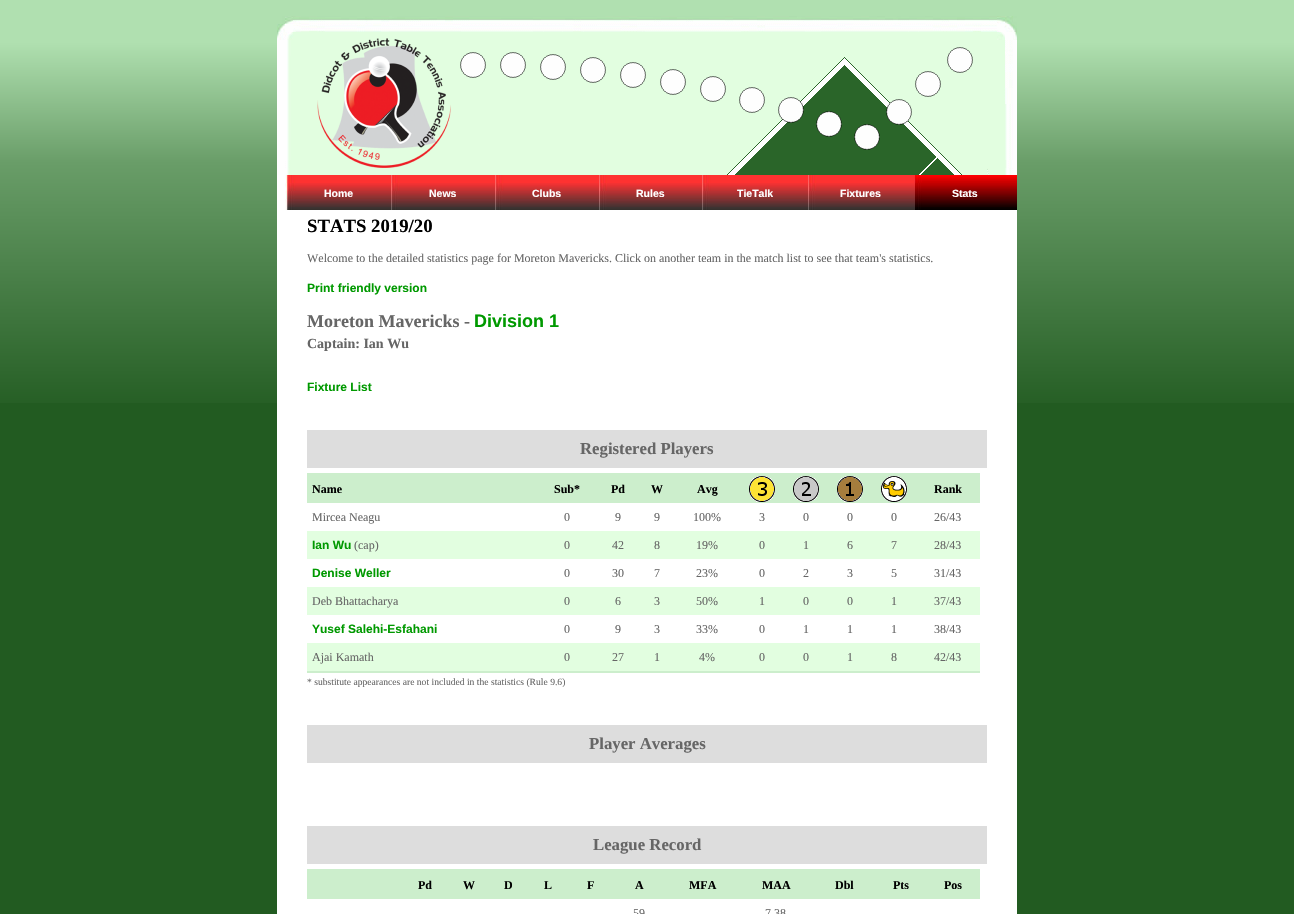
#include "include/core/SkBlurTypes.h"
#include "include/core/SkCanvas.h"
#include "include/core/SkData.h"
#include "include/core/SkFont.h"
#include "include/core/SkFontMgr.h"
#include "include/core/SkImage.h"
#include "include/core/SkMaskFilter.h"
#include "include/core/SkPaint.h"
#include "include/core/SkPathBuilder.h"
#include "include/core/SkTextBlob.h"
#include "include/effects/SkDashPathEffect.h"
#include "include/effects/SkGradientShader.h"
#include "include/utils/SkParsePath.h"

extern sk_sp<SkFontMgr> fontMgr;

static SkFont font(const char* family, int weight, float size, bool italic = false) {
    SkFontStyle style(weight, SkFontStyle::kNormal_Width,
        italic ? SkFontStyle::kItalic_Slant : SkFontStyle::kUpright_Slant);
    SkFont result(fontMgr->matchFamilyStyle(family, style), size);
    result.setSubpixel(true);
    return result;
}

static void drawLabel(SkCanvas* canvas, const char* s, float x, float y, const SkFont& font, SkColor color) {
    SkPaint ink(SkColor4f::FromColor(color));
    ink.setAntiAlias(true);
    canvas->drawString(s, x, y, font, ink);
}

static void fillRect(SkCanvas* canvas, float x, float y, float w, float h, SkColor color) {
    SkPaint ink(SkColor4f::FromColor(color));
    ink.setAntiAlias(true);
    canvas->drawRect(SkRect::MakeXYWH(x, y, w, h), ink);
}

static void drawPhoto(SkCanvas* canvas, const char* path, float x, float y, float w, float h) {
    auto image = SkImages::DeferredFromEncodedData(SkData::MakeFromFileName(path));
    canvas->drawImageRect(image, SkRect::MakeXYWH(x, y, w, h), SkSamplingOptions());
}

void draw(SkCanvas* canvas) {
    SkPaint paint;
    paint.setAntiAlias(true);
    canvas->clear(0xFF225B21);
    drawPhoto(canvas, "assets/img1.png", 0, 0, 1294, 403);
    fillRect(canvas, 277, 175, 740, 739, 0xFFFFFFFF);
    drawPhoto(canvas, "assets/img2.png", 277, 0, 740, 175);
    drawPhoto(canvas, "assets/img3.png", 317, 38, 134, 130);
    drawPhoto(canvas, "assets/img4.png", 285, 175, 2, 35);
    drawPhoto(canvas, "assets/img5.png", 287, 175, 104, 35);
    SkFont font1 = font("Liberation Sans", 700, 10.5f);
    drawLabel(canvas, "Home", 324, 197, font1, 0xFFFFFFFF);
    drawPhoto(canvas, "assets/img5.png", 391, 175, 104, 35);
    drawLabel(canvas, "News", 429, 197, font1, 0xFFFFFFFF);
    drawPhoto(canvas, "assets/img5.png", 495, 175, 104, 35);
    drawLabel(canvas, "Clubs", 532, 197, font1, 0xFFFFFFFF);
    drawPhoto(canvas, "assets/img6.png", 599, 175, 103, 35);
    drawLabel(canvas, "Rules", 636, 197, font1, 0xFFFFFFFF);
    drawPhoto(canvas, "assets/img7.png", 702, 175, 106, 35);
    drawLabel(canvas, "TieTalk", 737, 197, font1, 0xFFFFFFFF);
    drawPhoto(canvas, "assets/img8.png", 808, 175, 106, 35);
    drawLabel(canvas, "Fixtures", 840, 197, font1, 0xFFFFFFFF);
    drawPhoto(canvas, "assets/img9.png", 914, 175, 103, 35);
    drawLabel(canvas, "Stats", 952, 197, font1, 0xFFFFFFFF);
    SkFont font2 = font("Liberation Serif", 700, 18.75f);
    drawLabel(canvas, "STATS 2019/20", 307, 232, font2, 0xFF000000);
    SkFont font3 = font("Liberation Serif", 400, 12);
    drawLabel(canvas, "Welcome to the detailed statistics page for Moreton Mavericks. Click on another team in the match list to see that team's statistics.", 307, 262, font3, 0xFF666666);
    SkFont font4 = font("Liberation Sans", 700, 12);
    drawLabel(canvas, "Print friendly version", 307, 292, font4, 0xFF009900);
    SkFont font5 = font("Liberation Serif", 700, 18);
    drawLabel(canvas, "Moreton Mavericks -", 307, 327, font5, 0xFF666666);
    SkFont font6 = font("Liberation Sans", 700, 18);
    drawLabel(canvas, "Division 1", 474, 327, font6, 0xFF009900);
    SkFont font7 = font("Liberation Serif", 700, 14);
    drawLabel(canvas, "Captain: Ian Wu", 307, 348, font7, 0xFF666666);
    drawLabel(canvas, "Fixture List", 307, 391, font4, 0xFF009900);
    fillRect(canvas, 307, 430, 680, 38, 0xFFDDDDDD);
    SkFont font8 = font("Liberation Serif", 700, 16.75f);
    drawLabel(canvas, "Registered Players", 580, 454, font8, 0xFF666666);
    fillRect(canvas, 307, 473, 673, 2, 0xFFCCEECC);
    fillRect(canvas, 307, 671, 673, 2, 0xFFCCEECC);
    fillRect(canvas, 307, 475, 673, 28, 0xFFCCEECC);
    SkFont font9 = font("Liberation Serif", 700, 12);
    drawLabel(canvas, "Name", 312, 493, font9, 0xFF000000);
    drawLabel(canvas, "Sub*", 554, 493, font9, 0xFF000000);
    drawLabel(canvas, "Pd", 611, 493, font9, 0xFF000000);
    drawLabel(canvas, "W", 651, 493, font9, 0xFF000000);
    drawLabel(canvas, "Avg", 697, 493, font9, 0xFF000000);
    drawPhoto(canvas, "assets/img10.png", 749, 476, 26, 26);
    drawPhoto(canvas, "assets/img11.png", 793, 476, 26, 26);
    drawPhoto(canvas, "assets/img12.png", 837, 476, 26, 26);
    drawPhoto(canvas, "assets/img13.png", 881, 476, 26, 26);
    drawLabel(canvas, "Rank", 934, 493, font9, 0xFF000000);
    drawLabel(canvas, "Mircea Neagu", 312, 521, font3, 0xFF666666);
    drawLabel(canvas, "0", 564, 521, font3, 0xFF666666);
    drawLabel(canvas, "9", 615, 521, font3, 0xFF666666);
    drawLabel(canvas, "9", 654, 521, font3, 0xFF666666);
    drawLabel(canvas, "100%", 693, 521, font3, 0xFF666666);
    drawLabel(canvas, "3", 759, 521, font3, 0xFF666666);
    drawLabel(canvas, "0", 803, 521, font3, 0xFF666666);
    drawLabel(canvas, "0", 847, 521, font3, 0xFF666666);
    drawLabel(canvas, "0", 891, 521, font3, 0xFF666666);
    drawLabel(canvas, "26/43", 934, 521, font3, 0xFF666666);
    fillRect(canvas, 307, 531, 673, 28, 0xFFE2FEE0);
    drawLabel(canvas, "Ian Wu", 312, 549, font4, 0xFF009900);
    drawLabel(canvas, "(cap)", 354, 549, font3, 0xFF666666);
    drawLabel(canvas, "0", 564, 549, font3, 0xFF666666);
    drawLabel(canvas, "42", 612, 549, font3, 0xFF666666);
    drawLabel(canvas, "8", 654, 549, font3, 0xFF666666);
    drawLabel(canvas, "19%", 696, 549, font3, 0xFF666666);
    drawLabel(canvas, "0", 759, 549, font3, 0xFF666666);
    drawLabel(canvas, "1", 803, 549, font3, 0xFF666666);
    drawLabel(canvas, "6", 847, 549, font3, 0xFF666666);
    drawLabel(canvas, "7", 891, 549, font3, 0xFF666666);
    drawLabel(canvas, "28/43", 934, 549, font3, 0xFF666666);
    drawLabel(canvas, "Denise Weller", 312, 577, font4, 0xFF009900);
    drawLabel(canvas, "0", 564, 577, font3, 0xFF666666);
    drawLabel(canvas, "30", 612, 577, font3, 0xFF666666);
    drawLabel(canvas, "7", 654, 577, font3, 0xFF666666);
    drawLabel(canvas, "23%", 696, 577, font3, 0xFF666666);
    drawLabel(canvas, "0", 759, 577, font3, 0xFF666666);
    drawLabel(canvas, "2", 803, 577, font3, 0xFF666666);
    drawLabel(canvas, "3", 847, 577, font3, 0xFF666666);
    drawLabel(canvas, "5", 891, 577, font3, 0xFF666666);
    drawLabel(canvas, "31/43", 934, 577, font3, 0xFF666666);
    fillRect(canvas, 307, 587, 673, 28, 0xFFE2FEE0);
    drawLabel(canvas, "Deb Bhattacharya", 312, 605, font3, 0xFF666666);
    drawLabel(canvas, "0", 564, 605, font3, 0xFF666666);
    drawLabel(canvas, "6", 615, 605, font3, 0xFF666666);
    drawLabel(canvas, "3", 654, 605, font3, 0xFF666666);
    drawLabel(canvas, "50%", 696, 605, font3, 0xFF666666);
    drawLabel(canvas, "1", 759, 605, font3, 0xFF666666);
    drawLabel(canvas, "0", 803, 605, font3, 0xFF666666);
    drawLabel(canvas, "0", 847, 605, font3, 0xFF666666);
    drawLabel(canvas, "1", 891, 605, font3, 0xFF666666);
    drawLabel(canvas, "37/43", 934, 605, font3, 0xFF666666);
    drawLabel(canvas, "Yusef Salehi-Esfahani", 312, 633, font4, 0xFF009900);
    drawLabel(canvas, "0", 564, 633, font3, 0xFF666666);
    drawLabel(canvas, "9", 615, 633, font3, 0xFF666666);
    drawLabel(canvas, "3", 654, 633, font3, 0xFF666666);
    drawLabel(canvas, "33%", 696, 633, font3, 0xFF666666);
    drawLabel(canvas, "0", 759, 633, font3, 0xFF666666);
    drawLabel(canvas, "1", 803, 633, font3, 0xFF666666);
    drawLabel(canvas, "1", 847, 633, font3, 0xFF666666);
    drawLabel(canvas, "1", 891, 633, font3, 0xFF666666);
    drawLabel(canvas, "38/43", 934, 633, font3, 0xFF666666);
    fillRect(canvas, 307, 643, 673, 28, 0xFFE2FEE0);
    drawLabel(canvas, "Ajai Kamath", 312, 661, font3, 0xFF666666);
    drawLabel(canvas, "0", 564, 661, font3, 0xFF666666);
    drawLabel(canvas, "27", 612, 661, font3, 0xFF666666);
    drawLabel(canvas, "1", 654, 661, font3, 0xFF666666);
    drawLabel(canvas, "4%", 699, 661, font3, 0xFF666666);
    drawLabel(canvas, "0", 759, 661, font3, 0xFF666666);
    drawLabel(canvas, "0", 803, 661, font3, 0xFF666666);
    drawLabel(canvas, "1", 847, 661, font3, 0xFF666666);
    drawLabel(canvas, "8", 891, 661, font3, 0xFF666666);
    drawLabel(canvas, "42/43", 934, 661, font3, 0xFF666666);
    SkFont font10 = font("Liberation Serif", 400, 9.6f);
    drawLabel(canvas, "* substitute appearances are not included in the statistics (Rule 9.6)", 307, 685, font10, 0xFF666666);
    fillRect(canvas, 307, 725, 680, 38, 0xFFDDDDDD);
    drawLabel(canvas, "Player Averages", 589, 749, font8, 0xFF666666);
    fillRect(canvas, 307, 826, 680, 38, 0xFFDDDDDD);
    drawLabel(canvas, "League Record", 593, 850, font8, 0xFF666666);
    fillRect(canvas, 307, 869, 673, 2, 0xFFCCEECC);
    fillRect(canvas, 307, 871, 673, 28, 0xFFCCEECC);
    drawLabel(canvas, "Pd", 418, 889, font9, 0xFF000000);
    drawLabel(canvas, "W", 463, 889, font9, 0xFF000000);
    drawLabel(canvas, "D", 504, 889, font9, 0xFF000000);
    drawLabel(canvas, "L", 544, 889, font9, 0xFF000000);
    drawLabel(canvas, "F", 587, 889, font9, 0xFF000000);
    drawLabel(canvas, "A", 635, 889, font9, 0xFF000000);
    drawLabel(canvas, "MFA", 689, 889, font9, 0xFF000000);
    drawLabel(canvas, "MAA", 762, 889, font9, 0xFF000000);
    drawLabel(canvas, "Dbl", 835, 889, font9, 0xFF000000);
    drawLabel(canvas, "Pts", 893, 889, font9, 0xFF000000);
    drawLabel(canvas, "Pos", 944, 889, font9, 0xFF000000);
    drawLabel(canvas, "59", 633, 917, font3, 0xFF666666);
    drawLabel(canvas, "7.38", 765, 917, font3, 0xFF666666);
}
